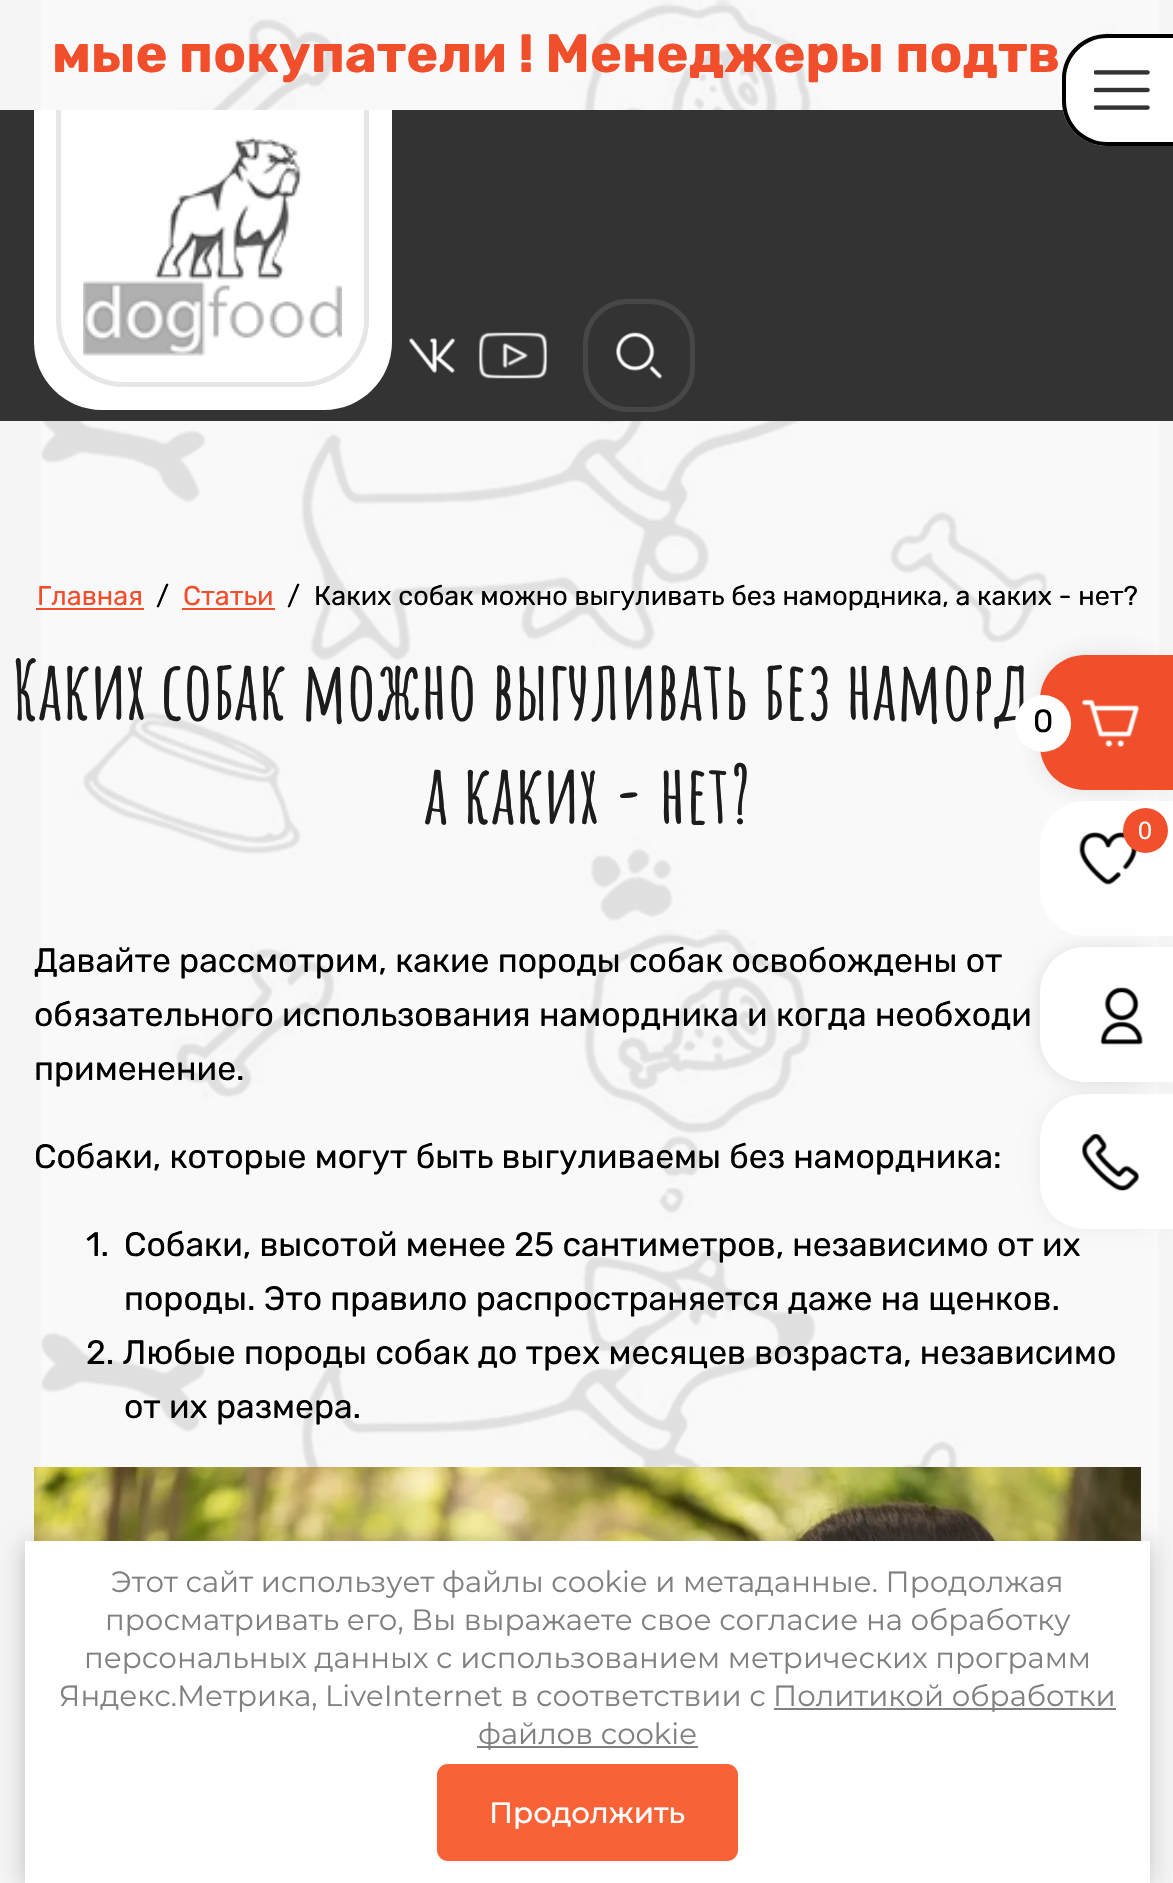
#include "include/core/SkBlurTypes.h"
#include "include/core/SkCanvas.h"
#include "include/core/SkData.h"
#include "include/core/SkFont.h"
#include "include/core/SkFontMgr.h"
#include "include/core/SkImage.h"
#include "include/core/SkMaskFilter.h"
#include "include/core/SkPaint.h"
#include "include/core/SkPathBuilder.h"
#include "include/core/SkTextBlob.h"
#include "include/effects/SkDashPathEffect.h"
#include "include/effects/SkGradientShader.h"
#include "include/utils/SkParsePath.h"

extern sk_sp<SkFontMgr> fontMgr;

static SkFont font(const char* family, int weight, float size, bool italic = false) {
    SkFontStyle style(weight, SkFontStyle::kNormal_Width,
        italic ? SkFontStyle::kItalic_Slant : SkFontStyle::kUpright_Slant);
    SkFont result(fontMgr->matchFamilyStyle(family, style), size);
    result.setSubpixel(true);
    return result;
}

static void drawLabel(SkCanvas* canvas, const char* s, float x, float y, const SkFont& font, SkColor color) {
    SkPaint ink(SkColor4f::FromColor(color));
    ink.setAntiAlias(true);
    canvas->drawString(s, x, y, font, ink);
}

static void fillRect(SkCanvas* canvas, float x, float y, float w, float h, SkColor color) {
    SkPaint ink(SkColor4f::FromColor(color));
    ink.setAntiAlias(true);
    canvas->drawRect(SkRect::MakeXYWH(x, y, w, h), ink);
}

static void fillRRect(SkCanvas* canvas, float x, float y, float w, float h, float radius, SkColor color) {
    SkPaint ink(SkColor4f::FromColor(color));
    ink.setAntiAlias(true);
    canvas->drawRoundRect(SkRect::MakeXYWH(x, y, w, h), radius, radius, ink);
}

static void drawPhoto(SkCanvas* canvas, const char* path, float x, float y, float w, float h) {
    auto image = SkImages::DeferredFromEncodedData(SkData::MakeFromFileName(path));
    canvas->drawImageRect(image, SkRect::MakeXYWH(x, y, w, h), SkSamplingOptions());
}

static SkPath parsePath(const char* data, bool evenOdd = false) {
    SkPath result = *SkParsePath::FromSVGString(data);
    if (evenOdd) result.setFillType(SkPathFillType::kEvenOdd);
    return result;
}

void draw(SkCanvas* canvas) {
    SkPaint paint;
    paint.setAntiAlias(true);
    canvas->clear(0xFFF5F5F5);
    drawPhoto(canvas, "assets/img1.png", 41, 0, 1118, 1883);
    SkFont font1 = font("Rubik", 700, 54);
    drawLabel(canvas, "мые покупатели ! Менеджеры подтв", 52, 72, font1, 0xFFF14E2B);
    fillRect(canvas, 0, 110, 1173, 311, 0xFF333333);
    paint.setColor(0xFFFFFFFF);
    canvas->drawPath(parsePath("M1107 34H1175V146H1107C1082 146 1062 126 1062 101V79C1062 54 1082 34 1107 34Z"), paint);
    paint.setColor(0xFF000000);
    canvas->drawPath(parsePath("M1107 34H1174V146H1107C1082 146 1062 126 1062 101V79C1062 54 1082 34 1107 34ZM1107 38H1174V142H1107C1085 142 1066 124 1066 101V79C1066 56 1085 38 1107 38Z", true), paint);
    drawPhoto(canvas, "assets/img2.png", 1094, 70, 56, 40);
    paint.setColor(0xFFFFFFFF);
    canvas->drawPath(parsePath("M34 110H392V342C392 379.5 361.5 410 324 410H102C64.5 410 34 379.5 34 342Z"), paint);
    paint.setColor(0xFFE6E6E6);
    canvas->drawPath(parsePath("M56 110H369V320C369 357 339 387 302 387H124C86 387 56 357 56 320ZM61 110H364V320C364 354 336 382 302 382H124C89 382 61 354 61 320Z", true), paint);
    drawPhoto(canvas, "assets/img3.png", 83, 136, 259, 220);
    drawPhoto(canvas, "assets/img4.png", 409, 338, 46, 36);
    drawPhoto(canvas, "assets/img5.png", 478, 332, 70, 47);
    drawPhoto(canvas, "assets/img6.png", 616, 332, 46, 47);
    paint.setStroke(true);
    paint.setStrokeWidth(5);
    paint.setColor(0xFF474747);
    canvas->drawRoundRect(SkRect::MakeXYWH(585.5f, 301.5f, 107, 108), 42.5f, 42.5f, paint);
    SkFont font2 = font("Rubik", 400, 27);
    drawLabel(canvas, "Главная", 37, 605, font2, 0xFFF14E2B);
    fillRect(canvas, 36, 608, 108, 2, 0xFFF14E2B);
    drawLabel(canvas, "/", 156, 605, font2, 0xFF000000);
    drawLabel(canvas, "Статьи", 183, 605, font2, 0xFFF14E2B);
    fillRect(canvas, 182, 608, 93, 2, 0xFFF14E2B);
    drawLabel(canvas, "/", 287, 605, font2, 0xFF000000);
    drawLabel(canvas, "Каких собак можно выгуливать без намордника, а каких - нет?", 314, 605, font2, 0xFF000000);
    SkFont font3 = font("Amatic SC", 700, 81);
    drawLabel(canvas, "Каких собак можно выгуливать без наморд", 12, 720, font3, 0xFF1C1C1C);
    drawLabel(canvas, "а каких - нет?", 424, 824, font3, 0xFF1C1C1C);
    paint.setStroke(false);
    paint.setColor(0x4D333333);
    paint.setMaskFilter(SkMaskFilter::MakeBlur(kNormal_SkBlurStyle, 16));
    canvas->drawRoundRect(SkRect::MakeXYWH(1051, 666, 112, 113), 34, 34, paint);
    paint.setMaskFilter(nullptr);
    paint.setColor(0xFFF14E2B);
    canvas->drawPath(parsePath("M1085 655H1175V790H1085C1060 790 1040 770 1040 745V700C1040 675 1060 655 1085 655Z"), paint);
    fillRRect(canvas, 1015, 695, 56, 57, 28, 0xFFFFFFFF);
    SkFont font4 = font("Rubik", 400, 32);
    drawLabel(canvas, "0", 1033, 732, font4, 0xFF000000);
    drawPhoto(canvas, "assets/img7.png", 1081, 699, 58, 49);
    paint.setColor(0xFFFFFFFF);
    canvas->drawPath(parsePath("M1085 801H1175V936H1085C1060 936 1040 916 1040 891V846C1040 821 1060 801 1085 801Z"), paint);
    drawPhoto(canvas, "assets/img8.png", 1079, 832, 58, 53);
    paint.setColor(0xFFF24F2C);
    canvas->drawCircle(1145.5f, 830.5f, 22.5f, paint);
    SkFont font5 = font("Liberation Sans", 400, 25);
    drawLabel(canvas, "0", 1138, 839, font5, 0xFFFFFFFF);
    paint.setColor(0x1A000000);
    paint.setMaskFilter(SkMaskFilter::MakeBlur(kNormal_SkBlurStyle, 11));
    canvas->drawRoundRect(SkRect::MakeXYWH(1046, 1100, 122, 122), 38, 38, paint);
    paint.setMaskFilter(nullptr);
    paint.setColor(0xFFFFFFFF);
    canvas->drawPath(parsePath("M1085 1094H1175V1229H1085C1060 1229 1040 1209 1040 1184V1139C1040 1114 1060 1094 1085 1094Z"), paint);
    paint.setColor(0x33000000);
    paint.setMaskFilter(SkMaskFilter::MakeBlur(kNormal_SkBlurStyle, 11));
    canvas->drawRoundRect(SkRect::MakeXYWH(1046, 954, 122, 122), 38, 38, paint);
    paint.setMaskFilter(nullptr);
    paint.setColor(0xFFFFFFFF);
    canvas->drawPath(parsePath("M1085 947H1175V1082H1085C1060 1082 1040 1062 1040 1037V992C1040 967 1060 947 1085 947Z"), paint);
    drawPhoto(canvas, "assets/img9.png", 1100, 987, 43, 58);
    drawPhoto(canvas, "assets/img10.png", 1081, 1133, 58, 58);
    SkFont font6 = font("Rubik", 400, 33.75f);
    drawLabel(canvas, "Давайте рассмотрим, какие породы собак освобождены от", 34, 972, font6, 0xFF000000);
    drawLabel(canvas, "обязательного использования намордника и когда необходи", 34, 1026, font6, 0xFF000000);
    drawLabel(canvas, "применение.", 34, 1080, font6, 0xFF000000);
    drawLabel(canvas, "Собаки, которые могут быть выгуливаемы без намордника:", 34, 1168, font6, 0xFF000000);
    drawLabel(canvas, "1.", 86, 1256, font6, 0xFF000000);
    drawLabel(canvas, "Собаки, высотой менее 25 сантиметров, независимо от их", 124, 1256, font6, 0xFF000000);
    drawLabel(canvas, "породы. Это правило распространяется даже на щенков.", 124, 1310, font6, 0xFF000000);
    drawLabel(canvas, "2. Любые породы собак до трех месяцев возраста, независимо", 86, 1364, font6, 0xFF000000);
    drawLabel(canvas, "от их размера.", 124, 1418, font6, 0xFF000000);
    drawPhoto(canvas, "assets/img11.png", 34, 1467, 1107, 74);
    paint.setColor(0x3B000000);
    paint.setMaskFilter(SkMaskFilter::MakeBlur(kNormal_SkBlurStyle, 11));
    canvas->drawRect(SkRect::MakeXYWH(25, 1544, 1125, 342), paint);
    paint.setMaskFilter(nullptr);
    fillRect(canvas, 25, 1541, 1125, 342, 0xFFFFFFFF);
    SkFont font7 = font("Montserrat", 400, 29.25f);
    drawLabel(canvas, "Этот сайт использует файлы cookie и метаданные. Продолжая", 111, 1592, font7, 0xFF808080);
    drawLabel(canvas, "просматривать его, Вы выражаете свое согласие на обработку", 105, 1630, font7, 0xFF808080);
    drawLabel(canvas, "персональных данных с использованием метрических программ", 84, 1668, font7, 0xFF808080);
    drawLabel(canvas, "Яндекс.Метрика, LiveInternet в соответствии с", 59, 1706, font7, 0xFF808080);
    fillRect(canvas, 774, 1708, 342, 2, 0xFF808080);
    drawLabel(canvas, "Политикой обработки", 773, 1706, font7, 0xFF808080);
    fillRect(canvas, 477, 1746, 221, 2, 0xFF808080);
    drawLabel(canvas, "файлов cookie", 478, 1744, font7, 0xFF808080);
    fillRRect(canvas, 437, 1764, 301, 97, 11, 0xFFF96236);
    SkFont font8 = font("Montserrat", 500, 29.25f);
    drawLabel(canvas, "Продолжить", 489, 1823, font8, 0xFFFFFFFF);
}
